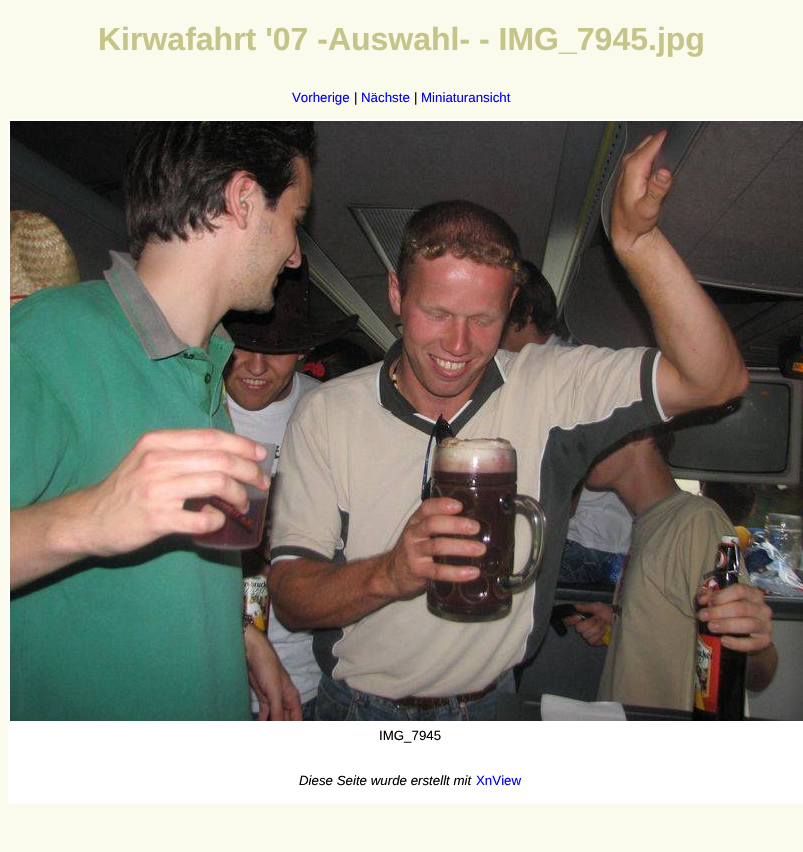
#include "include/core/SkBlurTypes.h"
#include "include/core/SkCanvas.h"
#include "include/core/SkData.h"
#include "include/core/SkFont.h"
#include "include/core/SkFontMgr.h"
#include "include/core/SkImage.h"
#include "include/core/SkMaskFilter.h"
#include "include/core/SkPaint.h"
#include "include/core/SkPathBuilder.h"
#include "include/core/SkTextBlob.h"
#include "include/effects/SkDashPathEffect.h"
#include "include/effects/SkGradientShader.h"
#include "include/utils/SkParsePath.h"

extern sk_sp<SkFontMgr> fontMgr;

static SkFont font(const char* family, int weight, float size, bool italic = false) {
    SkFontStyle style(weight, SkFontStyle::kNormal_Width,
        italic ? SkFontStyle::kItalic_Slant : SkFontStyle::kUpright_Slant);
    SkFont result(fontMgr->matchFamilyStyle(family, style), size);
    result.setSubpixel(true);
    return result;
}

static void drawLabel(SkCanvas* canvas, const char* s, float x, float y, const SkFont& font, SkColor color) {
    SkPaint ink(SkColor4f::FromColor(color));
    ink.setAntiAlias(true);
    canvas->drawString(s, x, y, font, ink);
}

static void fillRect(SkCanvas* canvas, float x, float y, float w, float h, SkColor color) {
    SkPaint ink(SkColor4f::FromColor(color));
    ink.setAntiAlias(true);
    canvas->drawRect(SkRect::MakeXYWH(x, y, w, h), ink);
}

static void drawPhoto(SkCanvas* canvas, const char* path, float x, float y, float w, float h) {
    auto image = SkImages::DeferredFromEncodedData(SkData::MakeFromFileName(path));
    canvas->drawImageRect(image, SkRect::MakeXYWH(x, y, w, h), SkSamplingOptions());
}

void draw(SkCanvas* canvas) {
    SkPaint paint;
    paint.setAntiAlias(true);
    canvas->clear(0xFFFAFAED);
    SkFont font1 = font("Liberation Sans", 700, 32);
    drawLabel(canvas, "Kirwafahrt '07 -Auswahl- - IMG_7945.jpg", 98, 50, font1, 0xFFC5C589);
    SkFont font2 = font("Liberation Sans", 400, 13.3f);
    drawLabel(canvas, "Vorherige", 292, 102, font2, 0xFF0000FF);
    drawLabel(canvas, "|", 354, 102, font2, 0xFF000000);
    drawLabel(canvas, "Nächste", 361, 102, font2, 0xFF0000FF);
    drawLabel(canvas, "|", 414, 102, font2, 0xFF000000);
    drawLabel(canvas, "Miniaturansicht", 421, 102, font2, 0xFF0000FF);
    fillRect(canvas, 8, 119, 795, 685, 0xFFFFFFFF);
    drawPhoto(canvas, "assets/img1.png", 10, 121, 793, 600);
    drawLabel(canvas, "IMG_7945", 379, 740, font2, 0xFF000000);
    SkFont font3 = font("Liberation Sans", 400, 13.3f, true);
    drawLabel(canvas, "Diese Seite wurde erstellt mit", 299, 785, font3, 0xFF000000);
    drawLabel(canvas, "XnView", 476, 785, font2, 0xFF0000FF);
}
